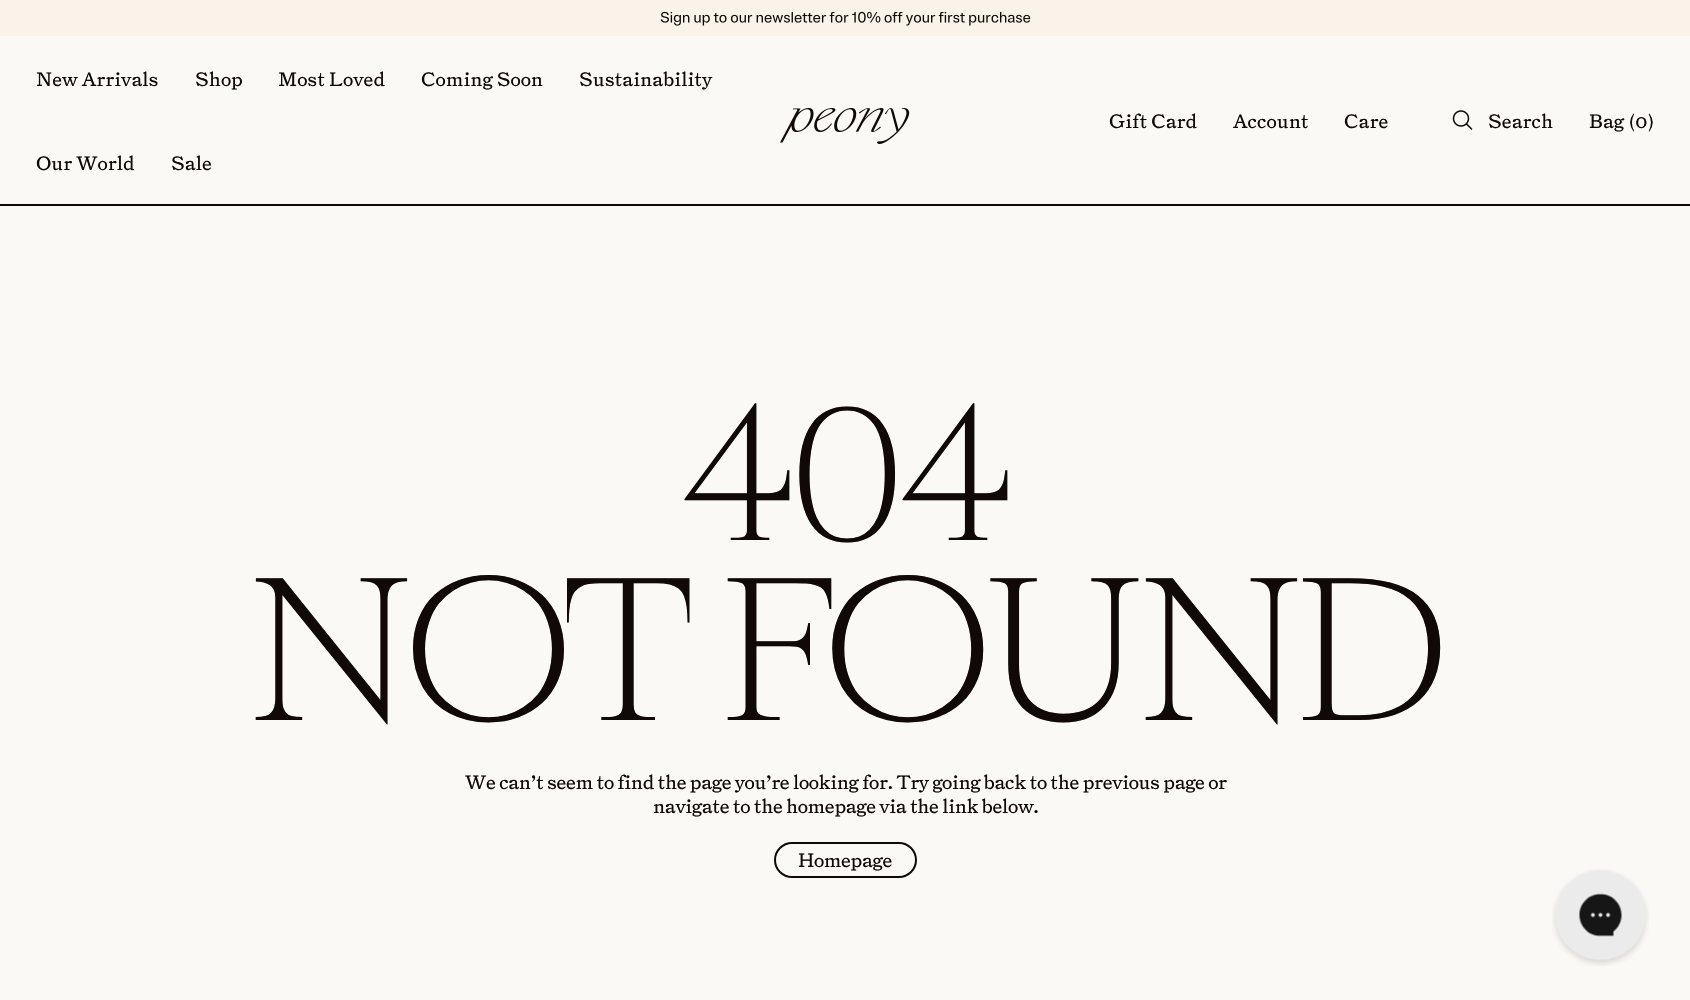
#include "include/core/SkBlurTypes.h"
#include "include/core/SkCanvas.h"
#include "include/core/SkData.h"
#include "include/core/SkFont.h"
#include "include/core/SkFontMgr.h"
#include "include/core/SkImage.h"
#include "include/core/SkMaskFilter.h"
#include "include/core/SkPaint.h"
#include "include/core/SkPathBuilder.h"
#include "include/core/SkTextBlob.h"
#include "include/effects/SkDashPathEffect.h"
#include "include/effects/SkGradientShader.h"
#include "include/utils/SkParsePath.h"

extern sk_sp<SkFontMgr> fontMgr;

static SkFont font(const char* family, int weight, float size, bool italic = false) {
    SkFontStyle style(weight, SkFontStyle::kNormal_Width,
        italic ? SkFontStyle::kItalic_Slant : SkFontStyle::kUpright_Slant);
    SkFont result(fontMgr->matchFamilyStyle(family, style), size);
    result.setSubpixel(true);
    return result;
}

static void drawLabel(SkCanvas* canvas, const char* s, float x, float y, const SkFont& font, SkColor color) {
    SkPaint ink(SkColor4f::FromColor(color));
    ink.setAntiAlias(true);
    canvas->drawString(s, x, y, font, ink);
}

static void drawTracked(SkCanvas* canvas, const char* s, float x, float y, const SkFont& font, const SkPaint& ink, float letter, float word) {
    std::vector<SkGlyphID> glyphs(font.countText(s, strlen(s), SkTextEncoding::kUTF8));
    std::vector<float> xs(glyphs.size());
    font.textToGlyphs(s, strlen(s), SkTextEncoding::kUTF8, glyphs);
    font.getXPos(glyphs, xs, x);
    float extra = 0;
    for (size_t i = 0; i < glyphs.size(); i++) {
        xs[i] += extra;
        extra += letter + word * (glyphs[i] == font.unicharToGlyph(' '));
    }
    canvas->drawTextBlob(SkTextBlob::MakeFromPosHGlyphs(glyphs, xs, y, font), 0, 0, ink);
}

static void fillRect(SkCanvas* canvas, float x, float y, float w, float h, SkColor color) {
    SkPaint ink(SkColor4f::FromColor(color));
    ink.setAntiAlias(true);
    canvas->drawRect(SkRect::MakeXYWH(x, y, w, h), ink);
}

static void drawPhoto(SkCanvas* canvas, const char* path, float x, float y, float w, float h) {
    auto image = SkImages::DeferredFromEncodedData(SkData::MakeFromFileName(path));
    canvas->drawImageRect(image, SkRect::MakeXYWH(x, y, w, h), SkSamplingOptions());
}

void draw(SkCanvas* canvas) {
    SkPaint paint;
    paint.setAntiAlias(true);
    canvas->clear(0xFFFBF9F6);
    fillRect(canvas, 0, 0, 1690, 36, 0xFFFAF3E9);
    drawPhoto(canvas, "assets/img1.png", 660, 11, 371, 15);
    fillRect(canvas, 0, 204, 1690, 2, 0xFF100906);
    SkFont font1 = font("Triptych", 400, 18);
    drawLabel(canvas, "New Arrivals", 36, 86, font1, 0xFF100906);
    drawLabel(canvas, "Shop", 195, 86, font1, 0xFF100906);
    drawLabel(canvas, "Most Loved", 278, 86, font1, 0xFF100906);
    drawLabel(canvas, "Coming Soon", 421, 86, font1, 0xFF100906);
    drawLabel(canvas, "Sustainability", 579, 86, font1, 0xFF100906);
    drawLabel(canvas, "Our World", 36, 170, font1, 0xFF100906);
    drawLabel(canvas, "Sale", 171, 170, font1, 0xFF100906);
    drawPhoto(canvas, "assets/img2.png", 780, 108, 130, 36);
    drawLabel(canvas, "Gift Card", 1109, 128, font1, 0xFF100906);
    drawLabel(canvas, "Account", 1233, 128, font1, 0xFF100906);
    drawLabel(canvas, "Care", 1344, 128, font1, 0xFF100906);
    drawPhoto(canvas, "assets/img3.png", 1452, 110, 21, 20);
    drawLabel(canvas, "Search", 1488, 128, font1, 0xFF100906);
    drawLabel(canvas, "Bag (0)", 1589, 128, font1, 0xFF100906);
    SkFont font2 = font("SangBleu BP", 300, 180);
    paint.setColor(0xFF100906);
    drawTracked(canvas, "404", 682, 540, font2, paint, -4.5f, 0);
    drawTracked(canvas, "NOT FOUND", 248, 720, font2, paint, -4.5f, 0);
    drawTracked(canvas, "We can’t seem to find the page you’re looking for. Try going back to the previous page or", 465, 789, font1, paint, -0.35f, 0);
    drawTracked(canvas, "navigate to the homepage via the link below.", 653, 813, font1, paint, -0.35f, 0);
    paint.setStroke(true);
    paint.setStrokeWidth(2);
    canvas->drawRoundRect(SkRect::MakeXYWH(775, 843, 141, 34), 17, 17, paint);
    paint.setStroke(false);
    drawTracked(canvas, "Homepage", 798, 867, font1, paint, -0.35f, 0);
    drawPhoto(canvas, "assets/img4.png", 1552, 869, 97, 97);
}
